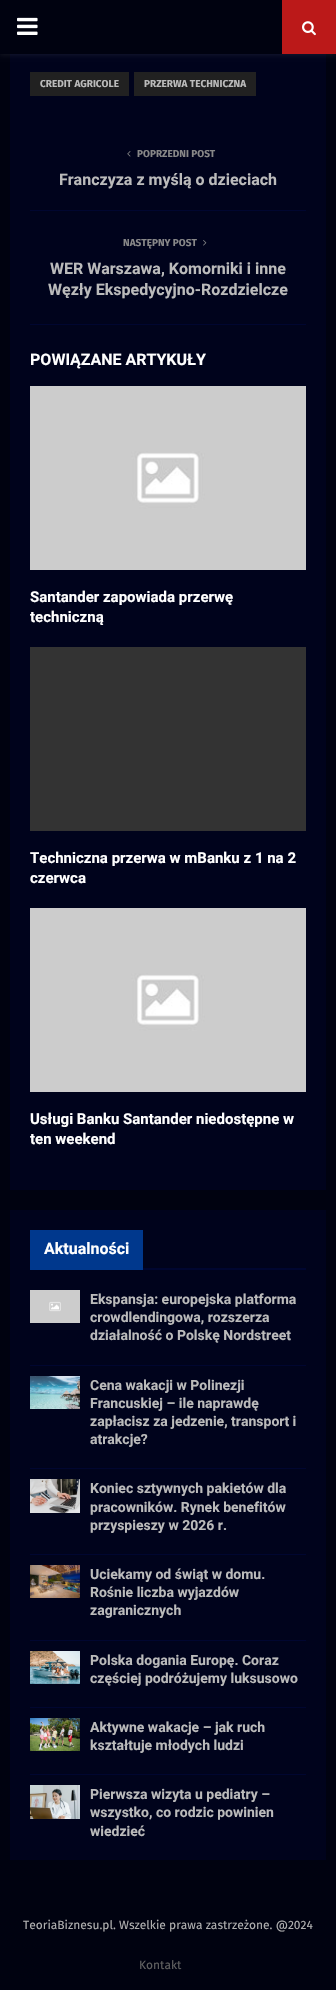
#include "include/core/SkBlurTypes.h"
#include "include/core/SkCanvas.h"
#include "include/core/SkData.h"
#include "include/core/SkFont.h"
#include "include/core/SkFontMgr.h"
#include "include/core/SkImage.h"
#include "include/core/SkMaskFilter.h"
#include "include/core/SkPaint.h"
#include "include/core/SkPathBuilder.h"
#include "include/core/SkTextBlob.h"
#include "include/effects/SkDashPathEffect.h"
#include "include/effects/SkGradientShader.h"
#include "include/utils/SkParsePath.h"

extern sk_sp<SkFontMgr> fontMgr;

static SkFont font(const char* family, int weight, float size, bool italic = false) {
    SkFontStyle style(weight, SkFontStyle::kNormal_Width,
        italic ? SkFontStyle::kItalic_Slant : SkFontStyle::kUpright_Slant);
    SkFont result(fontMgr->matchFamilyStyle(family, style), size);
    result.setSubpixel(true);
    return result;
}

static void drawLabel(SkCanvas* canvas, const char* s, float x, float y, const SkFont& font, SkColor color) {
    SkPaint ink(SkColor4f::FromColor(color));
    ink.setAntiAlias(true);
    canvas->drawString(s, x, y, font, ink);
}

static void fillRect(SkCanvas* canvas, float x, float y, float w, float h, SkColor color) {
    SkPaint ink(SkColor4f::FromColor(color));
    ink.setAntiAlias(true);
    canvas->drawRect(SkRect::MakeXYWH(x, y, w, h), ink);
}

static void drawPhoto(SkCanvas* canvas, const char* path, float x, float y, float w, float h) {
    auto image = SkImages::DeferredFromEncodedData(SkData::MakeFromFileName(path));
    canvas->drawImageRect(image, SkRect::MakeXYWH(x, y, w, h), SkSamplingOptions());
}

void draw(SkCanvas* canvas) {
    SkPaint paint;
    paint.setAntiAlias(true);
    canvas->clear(0xFF000210);
    fillRect(canvas, 10, 54, 316, 1136, 0xFF00031C);
    paint.setColor(0x14FFFFFF);
    paint.setMaskFilter(SkMaskFilter::MakeBlur(kNormal_SkBlurStyle, 2.5f));
    canvas->drawRect(SkRect::MakeXYWH(0, 1, 336, 54), paint);
    paint.setMaskFilter(nullptr);
    fillRect(canvas, 0, 0, 282, 54, 0xFF000210);
    drawPhoto(canvas, "assets/img1.png", 17, 17, 21, 18);
    fillRect(canvas, 282, 0, 54, 54, 0xFFBB1919);
    drawPhoto(canvas, "assets/img2.png", 302, 21, 14, 15);
    fillRect(canvas, 30, 72, 99, 24, 0xFF212121);
    SkFont font1 = font("Fira Sans", 700, 10);
    drawLabel(canvas, "CREDIT AGRICOLE", 40, 87, font1, 0xFFBBBBBB);
    fillRect(canvas, 134, 72, 122, 24, 0xFF212121);
    drawLabel(canvas, "PRZERWA TECHNICZNA", 144, 87, font1, 0xFFBBBBBB);
    fillRect(canvas, 30, 324, 276, 1, 0xFF000630);
    drawPhoto(canvas, "assets/img3.png", 127, 151, 4, 6);
    drawLabel(canvas, "POPRZEDNI POST", 137, 157, font1, 0xFF888888);
    SkFont font2 = font("Roboto", 700, 16);
    drawLabel(canvas, "Franczyza z myślą o dzieciach", 59, 185, font2, 0xFFBBBBBB);
    fillRect(canvas, 30, 210, 276, 1, 0xFF000630);
    drawLabel(canvas, "NASTĘPNY POST", 123, 246, font1, 0xFF888888);
    drawPhoto(canvas, "assets/img4.png", 203, 240, 4, 6);
    drawLabel(canvas, "WER Warszawa, Komorniki i inne", 50, 274, font2, 0xFFBBBBBB);
    drawLabel(canvas, "Węzły Ekspedycyjno-Rozdzielcze", 48, 295, font2, 0xFFBBBBBB);
    drawLabel(canvas, "POWIĄZANE ARTYKUŁY", 30, 365, font2, 0xFFFFFFFF);
    drawPhoto(canvas, "assets/img5.png", 30, 386, 276, 184);
    SkFont font3 = font("Roboto", 700, 15);
    drawLabel(canvas, "Santander zapowiada przerwę", 30, 602, font3, 0xFFFFFFFF);
    drawLabel(canvas, "techniczną", 30, 622, font3, 0xFFFFFFFF);
    fillRect(canvas, 30, 647, 276, 184, 0xFF333333);
    drawLabel(canvas, "Techniczna przerwa w mBanku z 1 na 2", 30, 863, font3, 0xFFFFFFFF);
    drawLabel(canvas, "czerwca", 30, 883, font3, 0xFFFFFFFF);
    drawPhoto(canvas, "assets/img6.png", 30, 908, 276, 184);
    drawLabel(canvas, "Usługi Banku Santander niedostępne w", 30, 1124, font3, 0xFFFFFFFF);
    drawLabel(canvas, "ten weekend", 30, 1144, font3, 0xFFFFFFFF);
    fillRect(canvas, 10, 1210, 316, 650, 0xFF00031C);
    fillRect(canvas, 143, 1268, 163, 2, 0xFF000630);
    fillRect(canvas, 30, 1230, 113, 40, 0xFF00388D);
    drawLabel(canvas, "Aktualności", 44, 1254, font2, 0xFFFFFFFF);
    fillRect(canvas, 30, 1365, 276, 1, 0xFF000630);
    drawPhoto(canvas, "assets/img7.png", 30, 1290, 50, 33);
    SkFont font4 = font("Roboto", 700, 14);
    drawLabel(canvas, "Ekspansja: europejska platforma", 90, 1304, font4, 0xFFBBBBBB);
    drawLabel(canvas, "crowdlendingowa, rozszerza", 90, 1322, font4, 0xFFBBBBBB);
    drawLabel(canvas, "działalność o Polskę Nordstreet", 90, 1340, font4, 0xFFBBBBBB);
    fillRect(canvas, 30, 1468, 276, 1, 0xFF000630);
    drawPhoto(canvas, "assets/img8.png", 30, 1376, 50, 33);
    drawLabel(canvas, "Cena wakacji w Polinezji", 90, 1390, font4, 0xFFBBBBBB);
    drawLabel(canvas, "Francuskiej – ile naprawdę", 90, 1408, font4, 0xFFBBBBBB);
    drawLabel(canvas, "zapłacisz za jedzenie, transport i", 90, 1426, font4, 0xFFBBBBBB);
    drawLabel(canvas, "atrakcje?", 90, 1444, font4, 0xFFBBBBBB);
    fillRect(canvas, 30, 1554, 276, 1, 0xFF000630);
    drawPhoto(canvas, "assets/img9.png", 30, 1479, 50, 34);
    drawLabel(canvas, "Koniec sztywnych pakietów dla", 90, 1493, font4, 0xFFBBBBBB);
    drawLabel(canvas, "pracowników. Rynek benefitów", 90, 1512, font4, 0xFFBBBBBB);
    drawLabel(canvas, "przyspieszy w 2026 r.", 90, 1530, font4, 0xFFBBBBBB);
    fillRect(canvas, 30, 1640, 276, 1, 0xFF000630);
    drawPhoto(canvas, "assets/img10.png", 30, 1565, 50, 33);
    drawLabel(canvas, "Uciekamy od świąt w domu.", 90, 1579, font4, 0xFFBBBBBB);
    drawLabel(canvas, "Rośnie liczba wyjazdów", 90, 1597, font4, 0xFFBBBBBB);
    drawLabel(canvas, "zagranicznych", 90, 1615, font4, 0xFFBBBBBB);
    fillRect(canvas, 30, 1707, 276, 1, 0xFF000630);
    drawPhoto(canvas, "assets/img11.png", 30, 1651, 50, 33);
    drawLabel(canvas, "Polska dogania Europę. Coraz", 90, 1665, font4, 0xFFBBBBBB);
    drawLabel(canvas, "częściej podróżujemy luksusowo", 90, 1683, font4, 0xFFBBBBBB);
    fillRect(canvas, 30, 1774, 276, 1, 0xFF000630);
    drawPhoto(canvas, "assets/img12.png", 30, 1718, 50, 33);
    drawLabel(canvas, "Aktywne wakacje – jak ruch", 90, 1732, font4, 0xFFBBBBBB);
    drawLabel(canvas, "kształtuje młodych ludzi", 90, 1750, font4, 0xFFBBBBBB);
    drawPhoto(canvas, "assets/img13.png", 30, 1785, 50, 34);
    drawLabel(canvas, "Pierwsza wizyta u pediatry –", 90, 1799, font4, 0xFFBBBBBB);
    drawLabel(canvas, "wszystko, co rodzic powinien", 90, 1817, font4, 0xFFBBBBBB);
    drawLabel(canvas, "wiedzieć", 90, 1836, font4, 0xFFBBBBBB);
    SkFont font5 = font("Fira Sans", 400, 12);
    drawLabel(canvas, "TeoriaBiznesu.pl. Wszelkie prawa zastrzeżone. @2024", 23, 1929, font5, 0xFFAFAFAF);
    drawLabel(canvas, "Kontakt", 139, 1969, font5, 0xFF616161);
}
